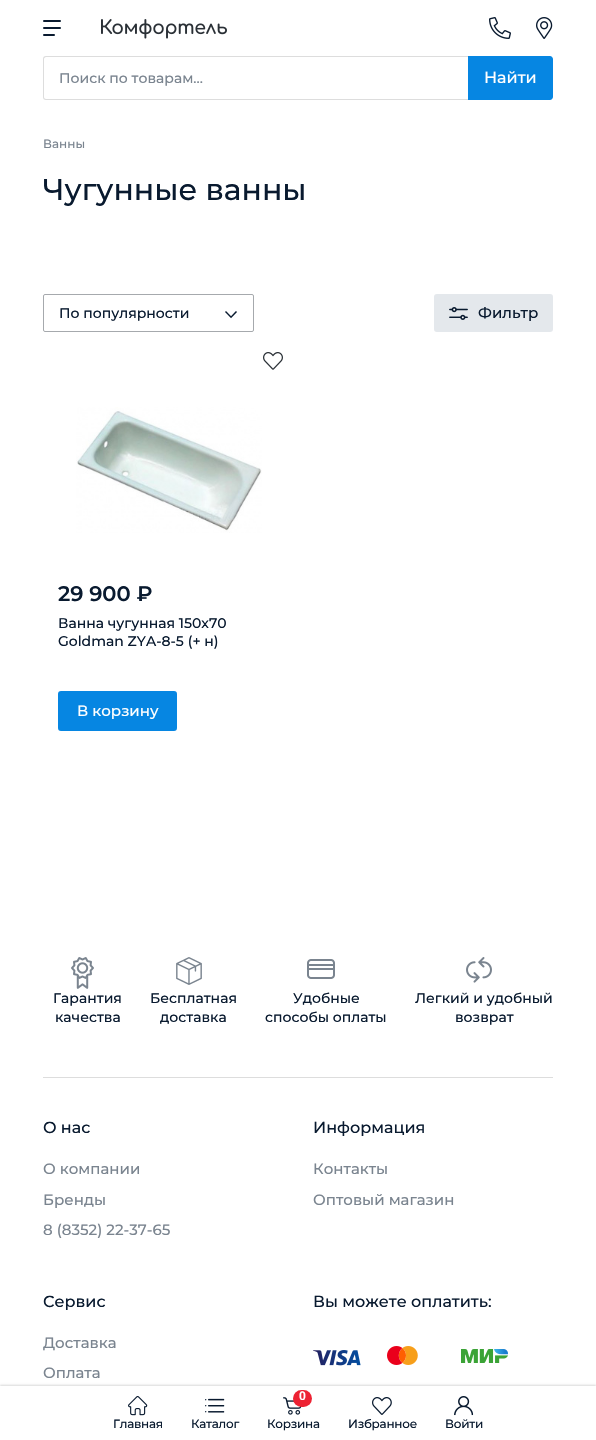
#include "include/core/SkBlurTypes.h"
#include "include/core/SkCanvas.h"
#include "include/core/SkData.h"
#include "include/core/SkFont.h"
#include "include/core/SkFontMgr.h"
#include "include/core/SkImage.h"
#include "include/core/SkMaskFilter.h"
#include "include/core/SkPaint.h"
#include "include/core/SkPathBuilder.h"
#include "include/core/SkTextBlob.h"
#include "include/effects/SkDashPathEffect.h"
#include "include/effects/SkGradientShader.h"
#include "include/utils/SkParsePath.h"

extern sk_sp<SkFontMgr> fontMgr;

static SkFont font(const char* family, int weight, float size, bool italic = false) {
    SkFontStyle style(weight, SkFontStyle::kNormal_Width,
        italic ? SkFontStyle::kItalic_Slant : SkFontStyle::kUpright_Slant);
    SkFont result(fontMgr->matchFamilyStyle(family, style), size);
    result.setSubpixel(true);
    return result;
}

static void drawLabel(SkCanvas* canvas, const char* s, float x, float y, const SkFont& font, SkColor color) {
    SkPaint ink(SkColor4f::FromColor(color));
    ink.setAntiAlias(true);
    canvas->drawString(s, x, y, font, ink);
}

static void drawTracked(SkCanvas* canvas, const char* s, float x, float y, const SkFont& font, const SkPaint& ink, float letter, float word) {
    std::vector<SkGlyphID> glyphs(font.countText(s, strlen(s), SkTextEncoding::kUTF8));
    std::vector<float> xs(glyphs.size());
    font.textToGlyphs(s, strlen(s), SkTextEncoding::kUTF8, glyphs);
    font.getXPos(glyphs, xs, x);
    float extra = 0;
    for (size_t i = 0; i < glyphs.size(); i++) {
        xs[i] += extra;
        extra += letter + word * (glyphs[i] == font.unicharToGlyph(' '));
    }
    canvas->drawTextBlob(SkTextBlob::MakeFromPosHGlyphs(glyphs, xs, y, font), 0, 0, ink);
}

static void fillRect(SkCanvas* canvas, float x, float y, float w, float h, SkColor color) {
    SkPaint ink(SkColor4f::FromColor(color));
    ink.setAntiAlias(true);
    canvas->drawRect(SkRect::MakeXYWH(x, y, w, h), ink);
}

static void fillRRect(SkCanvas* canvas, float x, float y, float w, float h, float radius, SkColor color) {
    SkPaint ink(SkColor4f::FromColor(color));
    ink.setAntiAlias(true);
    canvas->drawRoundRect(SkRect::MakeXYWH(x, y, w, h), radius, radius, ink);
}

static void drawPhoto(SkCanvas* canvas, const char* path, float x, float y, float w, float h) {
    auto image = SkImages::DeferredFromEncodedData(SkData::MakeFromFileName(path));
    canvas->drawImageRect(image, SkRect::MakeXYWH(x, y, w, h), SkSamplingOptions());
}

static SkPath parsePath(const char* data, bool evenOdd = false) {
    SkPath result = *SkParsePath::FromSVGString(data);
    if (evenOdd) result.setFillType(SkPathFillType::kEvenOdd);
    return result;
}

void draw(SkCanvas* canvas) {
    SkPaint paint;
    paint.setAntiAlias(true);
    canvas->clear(0xFFFFFFFF);
    fillRRect(canvas, 43, 20, 18, 2, 1, 0xFF091A2F);
    fillRRect(canvas, 43, 27, 18, 2, 1, 0xFF091A2F);
    fillRRect(canvas, 43, 34, 12, 2, 1, 0xFF091A2F);
    drawPhoto(canvas, "assets/img1.png", 101, 19, 126, 20);
    drawPhoto(canvas, "assets/img2.png", 489, 17, 22, 22);
    drawPhoto(canvas, "assets/img3.png", 536, 17, 17, 22);
    paint.setColor(0xFFDDDDDD);
    canvas->drawPath(parsePath("M46 56H469V100H46C44 100 43 99 43 97V59C43 57 44 56 46 56ZM46 57H469V99H46C45 99 44 98 44 97V59C44 58 45 57 46 57Z", true), paint);
    SkFont font1 = font("Montserrat", 500, 14);
    drawLabel(canvas, "Поиск по товарам...", 59, 83, font1, 0xFF7A848F);
    paint.setColor(0xFF0686E2);
    canvas->drawPath(parsePath("M468 56H550C551.5 56 553 57.5 553 59V97C553 98.5 551.5 100 550 100H468Z"), paint);
    SkFont font2 = font("Montserrat", 500, 16);
    drawLabel(canvas, "Найти", 484, 83, font2, 0xFFFFFFFF);
    SkFont font3 = font("Montserrat", 500, 12);
    drawLabel(canvas, "Ванны", 43, 148, font3, 0xFF7A848F);
    SkFont font4 = font("Montserrat", 500, 30);
    drawLabel(canvas, "Чугунные ванны", 43, 200, font4, 0xFF091A2F);
    paint.setStroke(true);
    paint.setStrokeWidth(1);
    paint.setColor(0xFFA6A9AD);
    canvas->drawRoundRect(SkRect::MakeXYWH(43.5f, 294.5f, 210, 37), 1.5f, 1.5f, paint);
    drawLabel(canvas, "По популярности", 59, 318, font1, 0xFF091A2F);
    drawPhoto(canvas, "assets/img4.png", 225, 311, 12, 8);
    paint.setStroke(false);
    paint.setColor(0xFFE4E8EC);
    canvas->drawRoundRect(SkRect::MakeXYWH(435, 295, 117, 36), 2, 2, paint);
    paint.setStroke(true);
    paint.setStrokeWidth(2);
    canvas->drawRoundRect(SkRect::MakeXYWH(435, 295, 117, 36), 2, 2, paint);
    drawPhoto(canvas, "assets/img5.png", 449, 307, 19, 13);
    SkFont font5 = font("Montserrat", 500, 15);
    drawLabel(canvas, "Фильтр", 478, 318, font5, 0xFF091A2F);
    drawPhoto(canvas, "assets/img6.png", 263, 352, 20, 18);
    drawPhoto(canvas, "assets/img7.png", 76, 407, 186, 126);
    SkFont font6 = font("Montserrat", 600, 21);
    drawLabel(canvas, "29 900 ₽", 58, 601, font6, 0xFF091A2F);
    drawLabel(canvas, "Ванна чугунная 150х70", 58, 628, font1, 0xFF091A2F);
    drawLabel(canvas, "Goldman ZYA-8-5 (+ н)", 58, 646, font1, 0xFF091A2F);
    paint.setStroke(false);
    paint.setColor(0xFF0686E2);
    canvas->drawRoundRect(SkRect::MakeXYWH(59, 692, 117, 38), 2, 2, paint);
    paint.setStroke(true);
    canvas->drawRoundRect(SkRect::MakeXYWH(59, 692, 117, 38), 2, 2, paint);
    drawLabel(canvas, "В корзину", 77, 716, font5, 0xFFFFFFFF);
    fillRect(canvas, 43, 1077, 510, 1, 0xFFDDDDDD);
    drawPhoto(canvas, "assets/img8.png", 71, 957, 23, 32);
    drawLabel(canvas, "Гарантия", 53, 1003, font1, 0xFF091A2F);
    drawLabel(canvas, "качества", 55, 1022, font1, 0xFF091A2F);
    drawPhoto(canvas, "assets/img9.png", 176, 957, 26, 28);
    drawLabel(canvas, "Бесплатная", 150, 1003, font1, 0xFF091A2F);
    drawLabel(canvas, "доставка", 160, 1022, font1, 0xFF091A2F);
    drawPhoto(canvas, "assets/img10.png", 307, 959, 28, 20);
    drawLabel(canvas, "Удобные", 293, 1003, font1, 0xFF091A2F);
    drawLabel(canvas, "способы оплаты", 265, 1022, font1, 0xFF091A2F);
    drawPhoto(canvas, "assets/img11.png", 466, 957, 26, 26);
    drawLabel(canvas, "Легкий и удобный", 415, 1003, font1, 0xFF091A2F);
    drawLabel(canvas, "возврат", 455, 1022, font1, 0xFF091A2F);
    drawLabel(canvas, "О нас", 43, 1133, font2, 0xFF091A2F);
    drawLabel(canvas, "О компании", 43, 1174, font5, 0xFF7A848F);
    drawLabel(canvas, "Бренды", 43, 1205, font5, 0xFF7A848F);
    drawLabel(canvas, "8 (8352) 22-37-65", 43, 1235, font5, 0xFF7A848F);
    drawLabel(canvas, "Информация", 313, 1133, font2, 0xFF091A2F);
    drawLabel(canvas, "Контакты", 313, 1174, font5, 0xFF7A848F);
    drawLabel(canvas, "Оптовый магазин", 313, 1205, font5, 0xFF7A848F);
    drawLabel(canvas, "Сервис", 43, 1307, font2, 0xFF091A2F);
    drawLabel(canvas, "Доставка", 43, 1348, font5, 0xFF7A848F);
    drawLabel(canvas, "Оплата", 43, 1378, font5, 0xFF7A848F);
    drawLabel(canvas, "Вы можете оплатить:", 313, 1307, font2, 0xFF091A2F);
    drawPhoto(canvas, "assets/img12.png", 313, 1346, 195, 20);
    paint.setStroke(false);
    paint.setColor(0x26000000);
    paint.setMaskFilter(SkMaskFilter::MakeBlur(kNormal_SkBlurStyle, 1));
    canvas->drawRect(SkRect::MakeXYWH(0, 1385, 596, 54), paint);
    paint.setMaskFilter(nullptr);
    fillRect(canvas, 0, 1386, 596, 54, 0xFFFFFFFF);
    drawPhoto(canvas, "assets/img13.png", 128, 1396, 20, 20);
    paint.setColor(0xFF091A2F);
    drawTracked(canvas, "Главная", 113, 1428, font3, paint, -0.25f, 0);
    drawPhoto(canvas, "assets/img14.png", 205, 1398, 20, 15);
    drawTracked(canvas, "Каталог", 191, 1428, font3, paint, -0.25f, 0);
    drawPhoto(canvas, "assets/img15.png", 283, 1397, 19, 18);
    fillRRect(canvas, 293, 1390, 19, 17, 8.5f, 0xFFED2233);
    SkFont font7 = font("Roboto", 600, 12);
    paint.setColor(0xFFFFFFFF);
    drawTracked(canvas, "0", 299, 1400, font7, paint, -0.25f, 0);
    paint.setColor(0xFF091A2F);
    drawTracked(canvas, "Корзина", 267, 1428, font3, paint, -0.25f, 0);
    drawPhoto(canvas, "assets/img16.png", 372, 1397, 20, 18);
    drawTracked(canvas, "Избранное", 348, 1428, font3, paint, -0.25f, 0);
    drawPhoto(canvas, "assets/img17.png", 454, 1396, 20, 20);
    drawTracked(canvas, "Войти", 445, 1428, font3, paint, -0.25f, 0);
}
